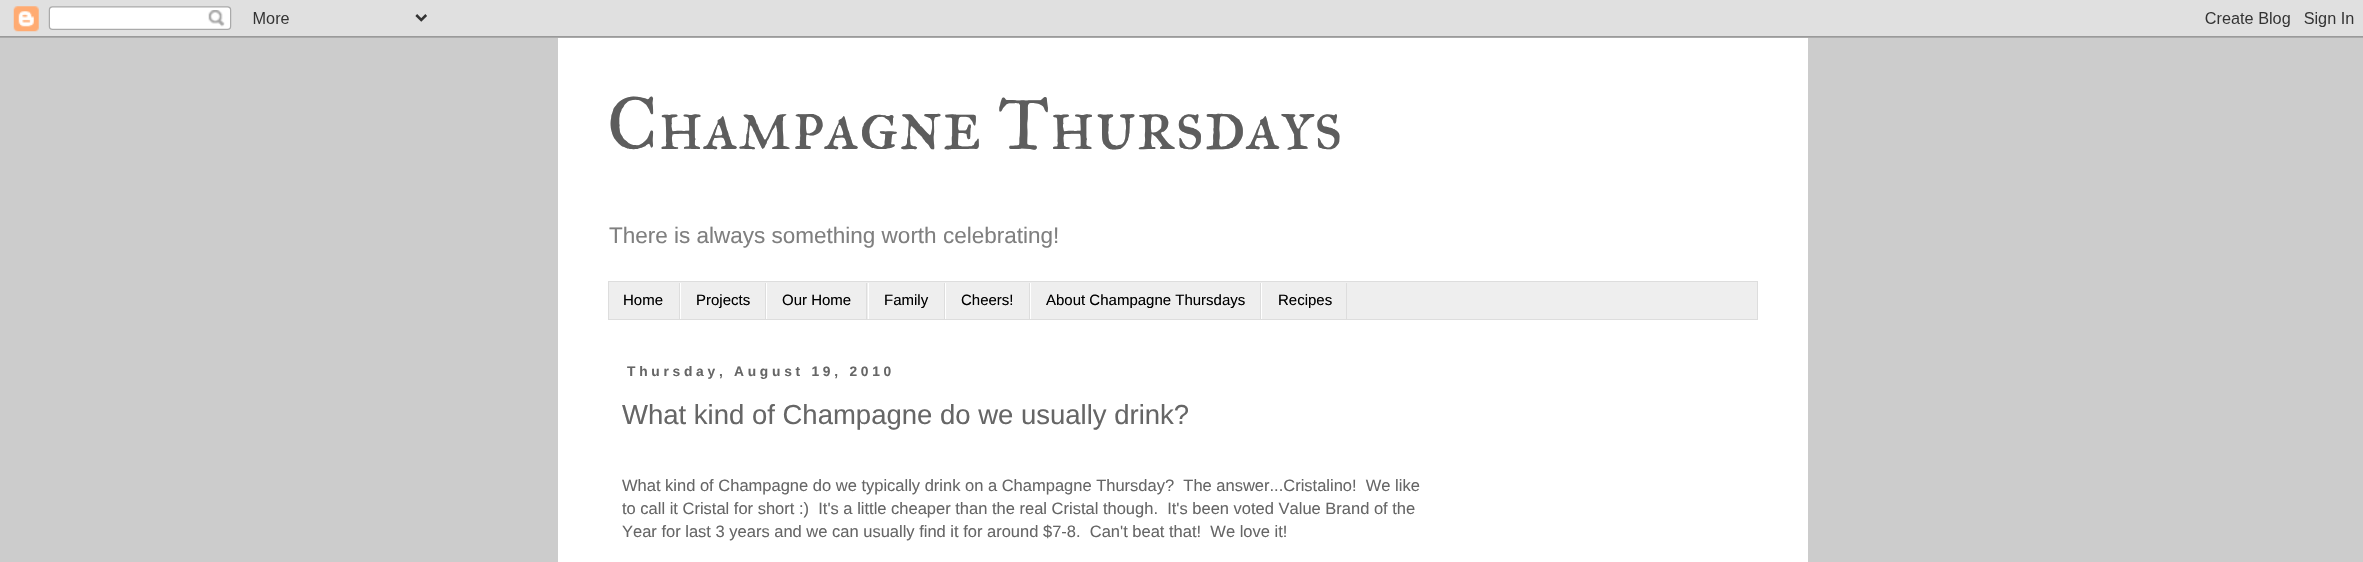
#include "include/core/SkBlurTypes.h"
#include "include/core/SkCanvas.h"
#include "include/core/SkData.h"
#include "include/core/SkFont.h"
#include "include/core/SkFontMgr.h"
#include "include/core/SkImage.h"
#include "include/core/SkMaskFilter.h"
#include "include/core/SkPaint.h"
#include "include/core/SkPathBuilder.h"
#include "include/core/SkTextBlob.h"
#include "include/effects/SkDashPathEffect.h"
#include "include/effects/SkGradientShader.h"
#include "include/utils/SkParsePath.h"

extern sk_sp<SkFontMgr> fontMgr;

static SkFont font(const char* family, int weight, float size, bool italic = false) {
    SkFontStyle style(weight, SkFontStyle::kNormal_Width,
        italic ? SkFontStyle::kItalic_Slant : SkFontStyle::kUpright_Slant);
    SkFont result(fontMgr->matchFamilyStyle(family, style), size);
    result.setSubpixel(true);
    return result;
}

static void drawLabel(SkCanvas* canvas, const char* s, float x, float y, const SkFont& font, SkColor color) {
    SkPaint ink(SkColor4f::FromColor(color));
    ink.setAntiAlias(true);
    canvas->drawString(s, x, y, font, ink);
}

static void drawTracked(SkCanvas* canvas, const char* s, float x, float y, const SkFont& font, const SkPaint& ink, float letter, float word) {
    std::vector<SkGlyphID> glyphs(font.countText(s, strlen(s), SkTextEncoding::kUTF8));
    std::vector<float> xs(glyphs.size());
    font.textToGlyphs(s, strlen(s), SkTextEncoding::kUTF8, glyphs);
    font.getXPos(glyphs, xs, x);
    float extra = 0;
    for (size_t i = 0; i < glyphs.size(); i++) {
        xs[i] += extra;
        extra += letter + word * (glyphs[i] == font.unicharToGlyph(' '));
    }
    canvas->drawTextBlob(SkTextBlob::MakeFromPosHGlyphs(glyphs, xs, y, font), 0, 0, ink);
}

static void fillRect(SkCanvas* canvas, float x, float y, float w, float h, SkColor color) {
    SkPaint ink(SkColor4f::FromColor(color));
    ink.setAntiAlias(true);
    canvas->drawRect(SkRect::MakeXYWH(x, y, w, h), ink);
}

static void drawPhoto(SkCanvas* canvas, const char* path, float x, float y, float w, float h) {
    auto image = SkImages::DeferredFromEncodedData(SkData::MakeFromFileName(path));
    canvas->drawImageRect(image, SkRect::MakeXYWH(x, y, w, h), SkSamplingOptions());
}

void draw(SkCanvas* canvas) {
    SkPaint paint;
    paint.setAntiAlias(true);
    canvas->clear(0xFFCCCCCC);
    drawPhoto(canvas, "assets/img1.png", 0, 0, 2363, 38);
    fillRect(canvas, 558, 38, 1250, 524, 0xFFFFFFFF);
    SkFont font1 = font("IM FELL Great Primer SC", 400, 75);
    drawLabel(canvas, "Champagne Thursdays", 607, 149, font1, 0xFF5D5D5D);
    SkFont font2 = font("Liberation Sans", 400, 22.5f);
    drawLabel(canvas, "There is always something worth celebrating!", 609, 243, font2, 0xFF7F7F7F);
    paint.setColor(0xFFEEEEEE);
    canvas->drawRect(SkRect::MakeXYWH(608.5f, 281.5f, 1149, 38), paint);
    paint.setStroke(true);
    paint.setStrokeWidth(1);
    paint.setColor(0xFFDDDDDD);
    canvas->drawRect(SkRect::MakeXYWH(608.5f, 281.5f, 1149, 38), paint);
    fillRect(canvas, 679, 283, 1, 36, 0xFFDDDDDD);
    SkFont font3 = font("Liberation Sans", 400, 15);
    drawLabel(canvas, "Home", 623, 305, font3, 0xFF000000);
    fillRect(canvas, 765, 283, 1, 36, 0xFFDDDDDD);
    fillRect(canvas, 680, 283, 1, 36, 0xFFFFFFFF);
    drawLabel(canvas, "Projects", 696, 305, font3, 0xFF000000);
    fillRect(canvas, 866, 283, 1, 36, 0xFFDDDDDD);
    fillRect(canvas, 766, 283, 1, 36, 0xFFFFFFFF);
    drawLabel(canvas, "Our Home", 782, 305, font3, 0xFF000000);
    fillRect(canvas, 944, 283, 1, 36, 0xFFDDDDDD);
    fillRect(canvas, 868, 283, 1, 36, 0xFFFFFFFF);
    drawLabel(canvas, "Family", 884, 305, font3, 0xFF000000);
    fillRect(canvas, 1029, 283, 1, 36, 0xFFDDDDDD);
    fillRect(canvas, 945, 283, 1, 36, 0xFFFFFFFF);
    drawLabel(canvas, "Cheers!", 961, 305, font3, 0xFF000000);
    fillRect(canvas, 1260, 283, 1, 36, 0xFFDDDDDD);
    fillRect(canvas, 1030, 283, 1, 36, 0xFFFFFFFF);
    drawLabel(canvas, "About Champagne Thursdays", 1046, 305, font3, 0xFF000000);
    fillRect(canvas, 1346, 283, 1, 36, 0xFFDDDDDD);
    fillRect(canvas, 1261, 283, 1, 36, 0xFFFFFFFF);
    drawLabel(canvas, "Recipes", 1278, 305, font3, 0xFF000000);
    SkFont font4 = font("Liberation Sans", 700, 13.75f);
    paint.setStroke(false);
    paint.setColor(0xFF666666);
    drawTracked(canvas, "Thursday, August 19, 2010", 627, 376, font4, paint, 3.75f, 0);
    SkFont font5 = font("Liberation Sans", 400, 27.5f);
    drawLabel(canvas, "What kind of Champagne do we usually drink?", 622, 424, font5, 0xFF666666);
    SkFont font6 = font("Liberation Sans", 400, 16.5f);
    drawLabel(canvas, "What kind of Champagne do we typically drink on a Champagne Thursday?  The answer...Cristalino!  We like", 622, 491, font6, 0xFF666666);
    drawLabel(canvas, "to call it Cristal for short :)  It's a little cheaper than the real Cristal though.  It's been voted Value Brand of the", 622, 514, font6, 0xFF666666);
    drawLabel(canvas, "Year for last 3 years and we can usually find it for around $7-8.  Can't beat that!  We love it!", 622, 537, font6, 0xFF666666);
}
